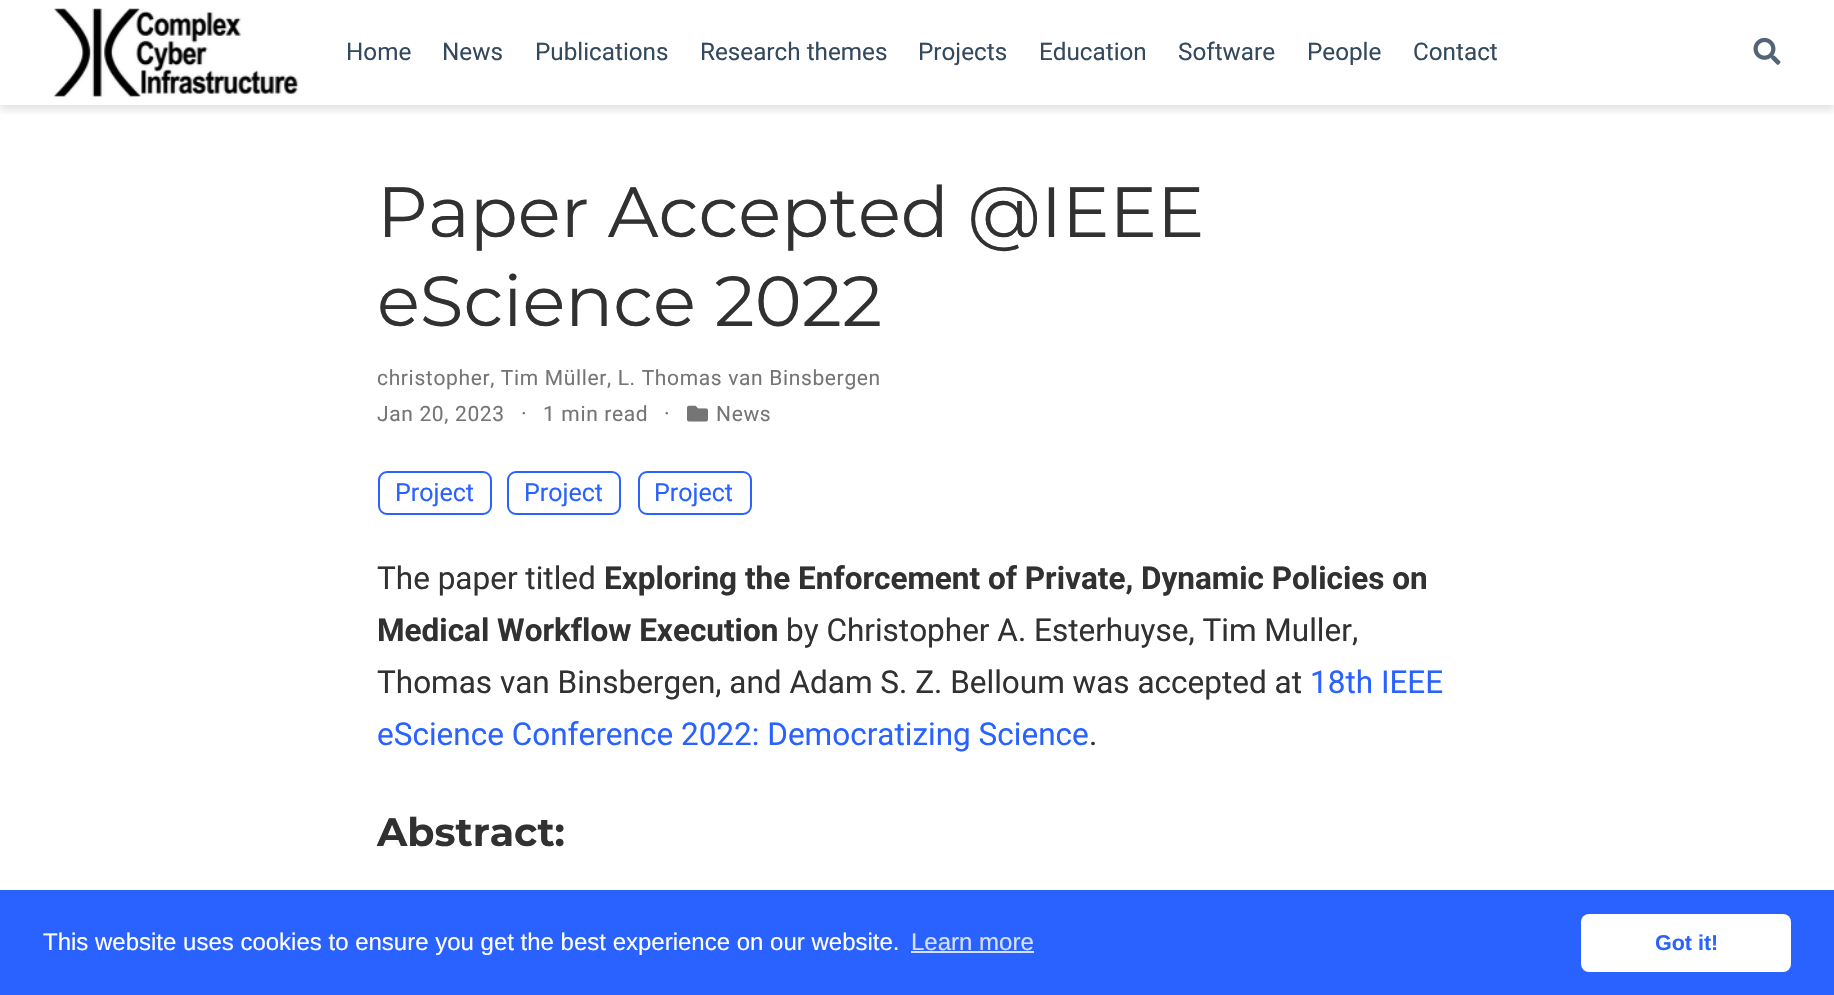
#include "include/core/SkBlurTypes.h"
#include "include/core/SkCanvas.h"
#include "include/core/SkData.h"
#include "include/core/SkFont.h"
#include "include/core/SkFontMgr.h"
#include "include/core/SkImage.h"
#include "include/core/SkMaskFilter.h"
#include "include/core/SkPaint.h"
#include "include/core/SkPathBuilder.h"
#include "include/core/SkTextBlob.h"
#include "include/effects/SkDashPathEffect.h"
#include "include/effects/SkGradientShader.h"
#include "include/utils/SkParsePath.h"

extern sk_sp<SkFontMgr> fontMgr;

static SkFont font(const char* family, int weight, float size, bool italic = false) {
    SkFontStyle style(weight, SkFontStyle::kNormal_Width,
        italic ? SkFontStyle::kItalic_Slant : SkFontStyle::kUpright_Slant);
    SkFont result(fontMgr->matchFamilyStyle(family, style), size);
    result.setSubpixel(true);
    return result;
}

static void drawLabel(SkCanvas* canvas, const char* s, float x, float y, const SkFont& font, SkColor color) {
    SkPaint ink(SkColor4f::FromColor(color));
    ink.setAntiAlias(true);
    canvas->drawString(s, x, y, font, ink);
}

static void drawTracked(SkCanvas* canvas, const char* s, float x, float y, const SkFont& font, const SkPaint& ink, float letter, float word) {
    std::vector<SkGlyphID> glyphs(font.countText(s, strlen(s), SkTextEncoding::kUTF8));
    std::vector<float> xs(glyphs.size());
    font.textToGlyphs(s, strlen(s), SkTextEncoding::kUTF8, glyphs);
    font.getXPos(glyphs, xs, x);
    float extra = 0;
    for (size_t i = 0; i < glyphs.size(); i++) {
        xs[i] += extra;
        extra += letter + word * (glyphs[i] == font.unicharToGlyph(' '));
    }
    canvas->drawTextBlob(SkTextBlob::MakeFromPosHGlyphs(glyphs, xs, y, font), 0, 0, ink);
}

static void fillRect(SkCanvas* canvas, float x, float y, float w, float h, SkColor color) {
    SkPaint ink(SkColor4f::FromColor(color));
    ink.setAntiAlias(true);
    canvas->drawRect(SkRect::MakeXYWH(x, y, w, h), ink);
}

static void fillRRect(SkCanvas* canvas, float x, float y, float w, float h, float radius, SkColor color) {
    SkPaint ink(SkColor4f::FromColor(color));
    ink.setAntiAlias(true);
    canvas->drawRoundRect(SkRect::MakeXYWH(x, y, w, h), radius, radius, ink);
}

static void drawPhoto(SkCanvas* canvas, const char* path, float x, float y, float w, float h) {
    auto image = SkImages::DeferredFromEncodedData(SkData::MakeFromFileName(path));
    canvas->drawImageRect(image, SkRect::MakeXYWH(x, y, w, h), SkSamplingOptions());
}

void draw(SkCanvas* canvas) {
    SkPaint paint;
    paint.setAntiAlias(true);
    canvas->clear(0xFFFFFFFF);
    canvas->save();
    canvas->clipRect(SkRect::MakeXYWH(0, 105, 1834, 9));
    paint.setColor(0x1C000000);
    paint.setMaskFilter(SkMaskFilter::MakeBlur(kNormal_SkBlurStyle, 4));
    canvas->drawRect(SkRect::MakeXYWH(0, 5, 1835, 105), paint);
    paint.setMaskFilter(nullptr);
    canvas->restore();
    drawPhoto(canvas, "assets/img1.png", 54, 7, 245, 91);
    SkFont font1 = font("Roboto", 400, 24.25f);
    drawLabel(canvas, "Home", 346, 60, font1, 0xFF34495E);
    drawLabel(canvas, "News", 442, 60, font1, 0xFF34495E);
    drawLabel(canvas, "Publications", 535, 60, font1, 0xFF34495E);
    drawLabel(canvas, "Research themes", 700, 60, font1, 0xFF34495E);
    drawLabel(canvas, "Projects", 918, 60, font1, 0xFF34495E);
    drawLabel(canvas, "Education", 1039, 60, font1, 0xFF34495E);
    drawLabel(canvas, "Software", 1178, 60, font1, 0xFF34495E);
    drawLabel(canvas, "People", 1307, 60, font1, 0xFF34495E);
    drawLabel(canvas, "Contact", 1413, 60, font1, 0xFF34495E);
    drawPhoto(canvas, "assets/img2.png", 1753, 37, 28, 28);
    SkFont font2 = font("Montserrat", 400, 70.9f);
    drawLabel(canvas, "Paper Accepted @IEEE", 377, 237, font2, 0xFF313131);
    drawLabel(canvas, "eScience 2022", 377, 326, font2, 0xFF313131);
    SkFont font3 = font("Roboto", 400, 21);
    paint.setColor(0xFF757575);
    drawTracked(canvas, "christopher, Tim Müller, L. Thomas van Binsbergen", 377, 385, font3, paint, 0.65f, 0);
    drawTracked(canvas, "Jan 20, 2023", 377, 421, font3, paint, 0.65f, 0);
    SkFont font4 = font("Roboto", 400, 22);
    drawTracked(canvas, "·", 521, 421, font4, paint, 0.65f, 0);
    drawTracked(canvas, "1 min read", 543, 421, font3, paint, 0.65f, 0);
    drawTracked(canvas, "·", 664, 421, font4, paint, 0.65f, 0);
    drawPhoto(canvas, "assets/img3.png", 687, 405, 21, 17);
    drawTracked(canvas, "News", 716, 421, font3, paint, 0.65f, 0);
    paint.setStroke(true);
    paint.setStrokeWidth(2);
    paint.setColor(0xFF2962FF);
    canvas->drawRoundRect(SkRect::MakeXYWH(379, 472, 112, 42), 8, 8, paint);
    SkFont font5 = font("Roboto", 400, 25);
    drawLabel(canvas, "Project", 395, 501, font5, 0xFF2962FF);
    canvas->drawRoundRect(SkRect::MakeXYWH(508, 472, 112, 42), 8, 8, paint);
    drawLabel(canvas, "Project", 524, 501, font5, 0xFF2962FF);
    canvas->drawRoundRect(SkRect::MakeXYWH(639, 472, 112, 42), 8, 8, paint);
    drawLabel(canvas, "Project", 654, 501, font5, 0xFF2962FF);
    SkFont font6 = font("Roboto", 400, 31.5f);
    drawLabel(canvas, "The paper titled", 377, 589, font6, 0xFF313131);
    SkFont font7 = font("Roboto", 700, 31.5f);
    drawLabel(canvas, "Exploring the Enforcement of Private, Dynamic Policies on", 604, 589, font7, 0xFF313131);
    drawLabel(canvas, "Medical Workflow Execution", 377, 641, font7, 0xFF313131);
    drawLabel(canvas, "by Christopher A. Esterhuyse, Tim Muller,", 786, 641, font6, 0xFF313131);
    drawLabel(canvas, "Thomas van Binsbergen, and Adam S. Z. Belloum was accepted at", 377, 693, font6, 0xFF313131);
    drawLabel(canvas, "18th IEEE", 1310, 693, font6, 0xFF2962FF);
    drawLabel(canvas, "eScience Conference 2022: Democratizing Science", 377, 745, font6, 0xFF2962FF);
    drawLabel(canvas, ".", 1089, 745, font6, 0xFF313131);
    SkFont font8 = font("Montserrat", 700, 39.5f);
    drawLabel(canvas, "Abstract:", 377, 846, font8, 0xFF313131);
    fillRect(canvas, 0, 890, 1834, 105, 0xFF2962FF);
    SkFont font9 = font("Liberation Sans", 400, 24);
    drawLabel(canvas, "This website uses cookies to ensure you get the best experience on our website.", 43, 950, font9, 0xFFFFFFFF);
    drawLabel(canvas, "Learn more", 911, 950, font9, 0xFFD4E0FF);
    fillRect(canvas, 911, 951, 123, 2, 0xFFD4E0FF);
    fillRRect(canvas, 1581, 914, 210, 58, 8, 0xFFFFFFFF);
    SkFont font10 = font("Liberation Sans", 700, 21.5f);
    drawLabel(canvas, "Got it!", 1655, 950, font10, 0xFF2962FF);
}
